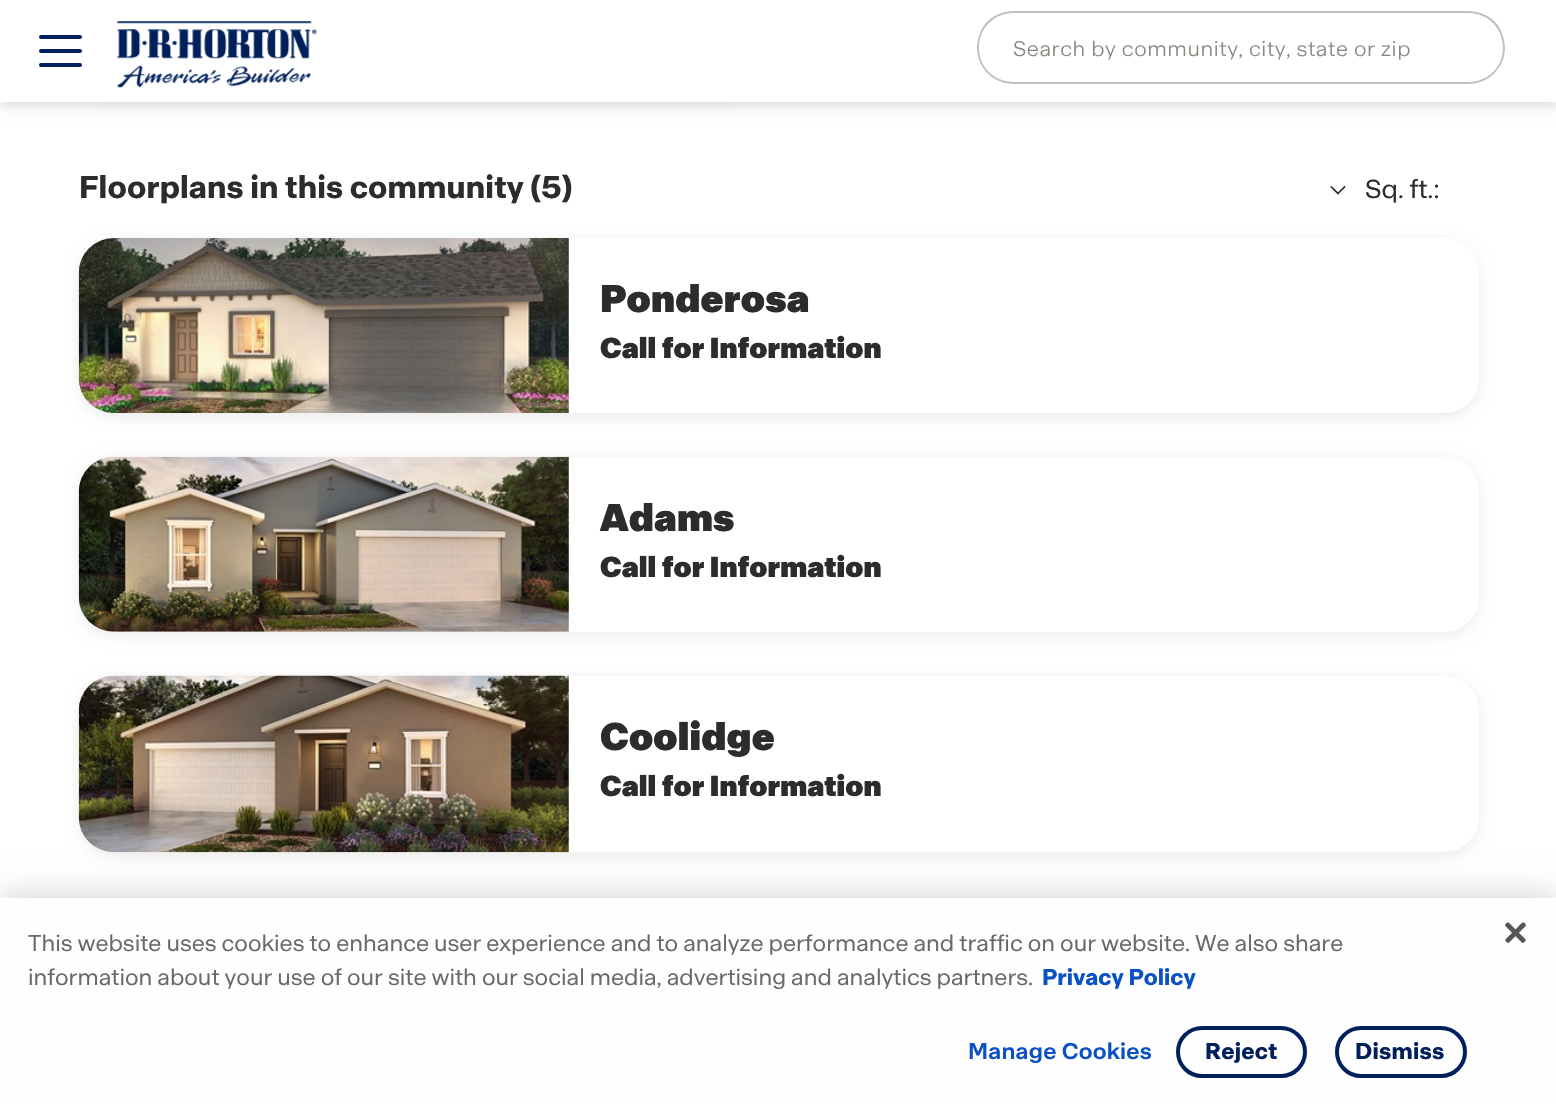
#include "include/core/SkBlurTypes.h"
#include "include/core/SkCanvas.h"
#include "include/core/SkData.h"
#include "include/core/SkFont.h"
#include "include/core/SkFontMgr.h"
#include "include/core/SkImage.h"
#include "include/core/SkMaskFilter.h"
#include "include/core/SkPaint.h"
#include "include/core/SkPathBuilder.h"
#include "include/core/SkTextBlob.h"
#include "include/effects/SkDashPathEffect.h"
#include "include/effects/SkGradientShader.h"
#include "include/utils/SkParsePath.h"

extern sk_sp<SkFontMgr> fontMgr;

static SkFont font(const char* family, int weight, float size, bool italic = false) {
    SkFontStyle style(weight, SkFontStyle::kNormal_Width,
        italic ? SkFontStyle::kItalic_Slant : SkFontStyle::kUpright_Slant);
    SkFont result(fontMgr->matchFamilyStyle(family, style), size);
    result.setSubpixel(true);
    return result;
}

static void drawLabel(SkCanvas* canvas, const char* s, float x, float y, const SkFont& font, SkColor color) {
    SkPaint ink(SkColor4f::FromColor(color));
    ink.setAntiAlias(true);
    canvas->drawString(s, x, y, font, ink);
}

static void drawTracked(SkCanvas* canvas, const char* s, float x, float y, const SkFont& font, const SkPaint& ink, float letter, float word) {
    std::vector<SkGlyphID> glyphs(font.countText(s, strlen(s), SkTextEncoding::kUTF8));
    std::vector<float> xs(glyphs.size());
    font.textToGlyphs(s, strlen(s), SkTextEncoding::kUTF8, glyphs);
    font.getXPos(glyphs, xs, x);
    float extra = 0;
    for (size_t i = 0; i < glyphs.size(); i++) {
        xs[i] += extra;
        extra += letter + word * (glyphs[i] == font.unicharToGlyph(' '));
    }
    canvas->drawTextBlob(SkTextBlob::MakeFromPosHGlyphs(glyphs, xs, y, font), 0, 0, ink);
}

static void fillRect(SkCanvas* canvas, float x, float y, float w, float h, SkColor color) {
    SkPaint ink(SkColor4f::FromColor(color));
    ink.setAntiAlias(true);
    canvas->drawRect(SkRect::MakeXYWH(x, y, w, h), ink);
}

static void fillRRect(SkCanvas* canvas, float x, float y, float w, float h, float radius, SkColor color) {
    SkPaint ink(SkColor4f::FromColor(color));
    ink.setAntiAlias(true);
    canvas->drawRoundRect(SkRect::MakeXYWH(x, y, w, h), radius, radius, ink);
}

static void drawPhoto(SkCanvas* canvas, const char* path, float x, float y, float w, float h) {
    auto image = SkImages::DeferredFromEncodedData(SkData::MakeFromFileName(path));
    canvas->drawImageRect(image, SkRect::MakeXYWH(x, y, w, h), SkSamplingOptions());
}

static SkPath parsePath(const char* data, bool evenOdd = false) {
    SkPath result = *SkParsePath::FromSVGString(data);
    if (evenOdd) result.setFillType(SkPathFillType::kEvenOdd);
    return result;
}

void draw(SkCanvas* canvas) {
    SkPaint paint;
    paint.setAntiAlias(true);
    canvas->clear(0xFFFFFFFF);
    paint.setColor(0x0F000000);
    paint.setMaskFilter(SkMaskFilter::MakeBlur(kNormal_SkBlurStyle, 5));
    canvas->drawRect(SkRect::MakeXYWH(0, 5, 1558, 102), paint);
    paint.setMaskFilter(nullptr);
    paint.setMaskFilter(SkMaskFilter::MakeBlur(kNormal_SkBlurStyle, 5));
    canvas->drawRect(SkRect::MakeXYWH(0, 5, 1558, 102), paint);
    paint.setMaskFilter(nullptr);
    paint.setColor(0x14808080);
    paint.setMaskFilter(SkMaskFilter::MakeBlur(kNormal_SkBlurStyle, 7));
    canvas->drawRoundRect(SkRect::MakeXYWH(79, -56, 672, 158), 35, 35, paint);
    paint.setMaskFilter(nullptr);
    fillRect(canvas, 0, 0, 1556, 102, 0xFFFFFFFF);
    fillRRect(canvas, 39, 35, 43, 4, 2, 0xFF00205B);
    fillRRect(canvas, 39, 49, 43, 4, 2, 0xFF00205B);
    fillRRect(canvas, 39, 63, 43, 4, 2, 0xFF00205B);
    drawPhoto(canvas, "assets/img1.png", 117, 21, 201, 67);
    paint.setColor(0xFFC0C0C0);
    canvas->drawPath(parsePath("M1014 11H1468C1480 11 1490 16 1497 24C1502 31 1505 40 1505 49C1504 69 1488 84 1468 84H1014C994 84 978 69 977 49C977 40 980 31 985 24C992 16 1002 11 1014 11ZM1014 13C994 13 979 28 979 48C979 67 994 82 1014 82H1468C1488 82 1503 67 1503 48C1503 28 1488 13 1468 13Z", true), paint);
    SkFont font1 = font("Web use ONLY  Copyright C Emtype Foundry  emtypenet", 300, 21);
    paint.setColor(0xFF8A857F);
    drawTracked(canvas, "Search by community, city, state or zip", 1013, 56, font1, paint, 0.6f, 0);
    SkFont font2 = font("Web use ONLY  Copyright C Emtype Foundry  emtypenet", 700, 31.5f);
    paint.setColor(0xFF2D2C2C);
    drawTracked(canvas, "Floorplans in this community (5)", 79, 198, font2, paint, 0.15f, 0);
    paint.setStroke(true);
    paint.setStrokeWidth(1.7f);
    paint.setStrokeCap(SkPaint::kSquare_Cap);
    canvas->drawPath(parsePath("M1344.5 187L1338 193.5M1331.5 187L1338 193.5"), paint);
    SkFont font3 = font("Web use ONLY  Copyright C Emtype Foundry  emtypenet", 400, 26);
    drawLabel(canvas, "Sq. ft.:", 1365, 198, font3, 0xFF2D2C2C);
    canvas->save();
    canvas->clipPath(parsePath("M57 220H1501V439H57ZM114 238H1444C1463.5 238 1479 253.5 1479 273V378C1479 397.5 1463.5 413 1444 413H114C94.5 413 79 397.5 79 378V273C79 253.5 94.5 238 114 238Z", true), true);
    paint.setStroke(false);
    paint.setColor(0x14000000);
    paint.setMaskFilter(SkMaskFilter::MakeBlur(kNormal_SkBlurStyle, 7));
    canvas->drawRoundRect(SkRect::MakeXYWH(79, 242, 1400, 175), 35, 35, paint);
    paint.setMaskFilter(nullptr);
    canvas->restore();
    paint.setColor(0xFFE8E8E8);
    canvas->drawPath(parsePath("M114 238H569V413H114C94.5 413 79 397.5 79 378V273C79 253.5 94.5 238 114 238Z"), paint);
    drawPhoto(canvas, "assets/img2.png", 78, 238, 491, 175);
    SkFont font4 = font("Web use ONLY  Copyright C Emtype Foundry  emtypenet", 900, 38.5f);
    paint.setColor(0xFF2D2C2C);
    drawTracked(canvas, "Ponderosa", 600, 312, font4, paint, 0.25f, 0);
    SkFont font5 = font("Web use ONLY  Copyright C Emtype Foundry  emtypenet", 900, 28.9f);
    drawTracked(canvas, "Call for Information", 600, 358, font5, paint, 0.1f, 0);
    canvas->save();
    canvas->clipPath(parsePath("M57 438H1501V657H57ZM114 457H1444C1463.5 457 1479 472.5 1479 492V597C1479 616.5 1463.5 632 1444 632H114C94.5 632 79 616.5 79 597V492C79 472.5 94.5 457 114 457Z", true), true);
    paint.setColor(0x14000000);
    paint.setMaskFilter(SkMaskFilter::MakeBlur(kNormal_SkBlurStyle, 7));
    canvas->drawRoundRect(SkRect::MakeXYWH(79, 460, 1400, 175), 35, 35, paint);
    paint.setMaskFilter(nullptr);
    canvas->restore();
    paint.setColor(0xFFE8E8E8);
    canvas->drawPath(parsePath("M114 457H569V632H114C94.5 632 79 616.5 79 597V492C79 472.5 94.5 457 114 457Z"), paint);
    drawPhoto(canvas, "assets/img3.png", 78, 456, 491, 176);
    paint.setColor(0xFF2D2C2C);
    drawTracked(canvas, "Adams", 600, 531, font4, paint, 0.25f, 0);
    drawTracked(canvas, "Call for Information", 600, 577, font5, paint, 0.1f, 0);
    canvas->save();
    canvas->clipPath(parsePath("M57 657H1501V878H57ZM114 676H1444C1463.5 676 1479 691.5 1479 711V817C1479 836.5 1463.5 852 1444 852H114C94.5 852 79 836.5 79 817V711C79 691.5 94.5 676 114 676Z", true), true);
    paint.setColor(0x14000000);
    paint.setMaskFilter(SkMaskFilter::MakeBlur(kNormal_SkBlurStyle, 7));
    canvas->drawRoundRect(SkRect::MakeXYWH(79, 679, 1400, 177), 35, 35, paint);
    paint.setMaskFilter(nullptr);
    canvas->restore();
    drawPhoto(canvas, "assets/img4.png", 78, 675, 491, 178);
    paint.setColor(0xFF2D2C2C);
    drawTracked(canvas, "Coolidge", 600, 750, font4, paint, 0.25f, 0);
    drawTracked(canvas, "Call for Information", 600, 796, font5, paint, 0.1f, 0);
    paint.setColor(0x33000000);
    paint.setMaskFilter(SkMaskFilter::MakeBlur(kNormal_SkBlurStyle, 16));
    canvas->drawRect(SkRect::MakeXYWH(0, 898, 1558, 206), paint);
    paint.setMaskFilter(nullptr);
    fillRect(canvas, 0, 898, 1556, 206, 0xFFFEFEFE);
    SkFont font6 = font("Web use ONLY  Copyright C Emtype Foundry  emtypenet", 400, 22.75f);
    drawLabel(canvas, "This website uses cookies to enhance user experience and to analyze performance and traffic on our website. We also share", 28, 951, font6, 0xFF696969);
    drawLabel(canvas, "information about your use of our site with our social media, advertising and analytics partners.", 28, 985, font6, 0xFF696969);
    SkFont font7 = font("Web use ONLY  Copyright C Emtype Foundry  emtypenet", 700, 22.75f);
    drawLabel(canvas, "Privacy Policy", 1042, 985, font7, 0xFF0A51C5);
    SkFont font8 = font("Web use ONLY  Copyright C Emtype Foundry  emtypenet", 600, 22.75f);
    paint.setColor(0xFF0A51C5);
    drawTracked(canvas, "Manage Cookies", 968, 1059, font8, paint, 0.25f, 0);
    paint.setStroke(true);
    paint.setStrokeWidth(4);
    paint.setStrokeCap(SkPaint::kButt_Cap);
    paint.setColor(0xFF00205B);
    canvas->drawRoundRect(SkRect::MakeXYWH(1178, 1028, 127, 48), 24, 24, paint);
    paint.setStroke(false);
    drawTracked(canvas, "Reject", 1205, 1059, font7, paint, 0.25f, 0);
    paint.setStroke(true);
    canvas->drawRoundRect(SkRect::MakeXYWH(1337, 1028, 128, 48), 24, 24, paint);
    paint.setStroke(false);
    drawTracked(canvas, "Dismiss", 1355, 1059, font7, paint, 0.25f, 0);
    drawPhoto(canvas, "assets/img5.png", 1505, 922, 21, 21);
}
